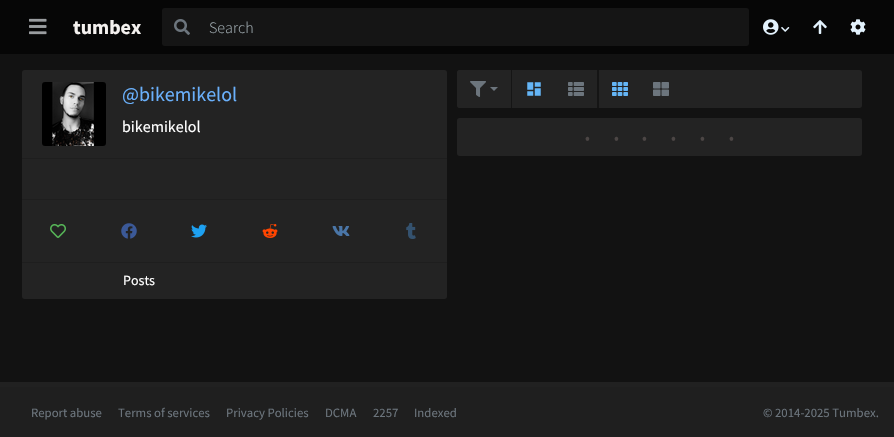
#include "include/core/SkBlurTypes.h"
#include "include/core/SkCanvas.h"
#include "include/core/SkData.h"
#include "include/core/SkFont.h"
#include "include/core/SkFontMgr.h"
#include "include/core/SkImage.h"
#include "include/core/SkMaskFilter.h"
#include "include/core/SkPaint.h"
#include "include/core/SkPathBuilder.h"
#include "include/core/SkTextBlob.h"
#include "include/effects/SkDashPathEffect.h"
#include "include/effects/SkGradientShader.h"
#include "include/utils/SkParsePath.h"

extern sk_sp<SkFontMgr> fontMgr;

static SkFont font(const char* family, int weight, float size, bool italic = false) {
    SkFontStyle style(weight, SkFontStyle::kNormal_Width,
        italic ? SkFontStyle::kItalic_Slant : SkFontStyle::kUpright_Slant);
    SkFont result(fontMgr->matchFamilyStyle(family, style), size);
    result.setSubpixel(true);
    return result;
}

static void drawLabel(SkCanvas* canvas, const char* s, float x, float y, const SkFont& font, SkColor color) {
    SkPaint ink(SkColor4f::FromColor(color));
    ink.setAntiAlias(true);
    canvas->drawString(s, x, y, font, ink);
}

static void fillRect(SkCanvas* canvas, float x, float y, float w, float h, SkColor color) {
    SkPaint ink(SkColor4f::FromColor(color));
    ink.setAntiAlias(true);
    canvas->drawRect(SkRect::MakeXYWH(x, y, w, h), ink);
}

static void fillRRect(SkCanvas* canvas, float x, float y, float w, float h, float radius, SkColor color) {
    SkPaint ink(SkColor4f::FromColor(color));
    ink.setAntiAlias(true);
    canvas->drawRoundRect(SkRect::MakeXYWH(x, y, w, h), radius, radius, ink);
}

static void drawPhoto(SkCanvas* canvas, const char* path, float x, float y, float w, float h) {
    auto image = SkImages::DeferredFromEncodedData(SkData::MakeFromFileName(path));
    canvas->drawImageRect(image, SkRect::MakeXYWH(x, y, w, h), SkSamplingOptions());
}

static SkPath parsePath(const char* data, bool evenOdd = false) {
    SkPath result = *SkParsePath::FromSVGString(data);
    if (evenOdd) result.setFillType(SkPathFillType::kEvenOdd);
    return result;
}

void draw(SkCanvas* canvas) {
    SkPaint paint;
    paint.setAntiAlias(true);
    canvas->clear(0xFF121212);
    fillRect(canvas, 0, 0, 894, 54, 0xFF060606);
    drawPhoto(canvas, "assets/img1.png", 29, 18, 18, 17);
    SkFont font1 = font("Source Sans Pro", 700, 20);
    drawLabel(canvas, "tumbex", 73, 34, font1, 0xFFF4F1EF);
    fillRRect(canvas, 162, 8, 587, 38, 3, 0xFF151515);
    drawPhoto(canvas, "assets/img2.png", 174, 19, 16, 16);
    SkFont font2 = font("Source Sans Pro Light", 300, 16);
    drawLabel(canvas, "Search", 209, 33, font2, 0xFF9EA9AE);
    drawPhoto(canvas, "assets/img3.png", 763, 19, 16, 16);
    drawPhoto(canvas, "assets/img4.png", 781, 27, 9, 5);
    drawPhoto(canvas, "assets/img5.png", 813, 20, 14, 14);
    drawPhoto(canvas, "assets/img6.png", 850, 19, 16, 16);
    fillRRect(canvas, 22, 70, 425, 229, 3, 0xFF232323);
    fillRect(canvas, 22, 158, 425, 1, 0xFF1E1E1E);
    drawPhoto(canvas, "assets/img7.png", 42, 82, 64, 64);
    SkFont font3 = font("Source Sans Pro", 400, 20);
    drawLabel(canvas, "@bikemikelol", 122, 101, font3, 0xFF6AB0FB);
    SkFont font4 = font("Source Sans Pro", 400, 16);
    drawLabel(canvas, "bikemikelol", 122, 132, font4, 0xFFFFFFFF);
    fillRect(canvas, 22, 199, 425, 1, 0xFF1E1E1E);
    fillRect(canvas, 22, 262, 425, 1, 0xFF1E1E1E);
    drawPhoto(canvas, "assets/img8.png", 50, 224, 16, 14);
    drawPhoto(canvas, "assets/img9.png", 121, 223, 16, 16);
    drawPhoto(canvas, "assets/img10.png", 191, 224, 16, 14);
    drawPhoto(canvas, "assets/img11.png", 262, 224, 16, 14);
    drawPhoto(canvas, "assets/img12.png", 332, 226, 18, 10);
    drawPhoto(canvas, "assets/img13.png", 406, 223, 10, 16);
    SkFont font5 = font("Source Sans Pro", 400, 14);
    drawLabel(canvas, "Posts", 123, 285, font5, 0xFFFFFFFF);
    fillRRect(canvas, 457, 70, 405, 38, 3, 0xFF232323);
    fillRect(canvas, 511, 70, 1, 38, 0xFF151515);
    paint.setColor(0xFF232323);
    canvas->drawPath(parsePath("M460 70H511V108H460C458.5 108 457 106.5 457 105V73C457 71.5 458.5 70 460 70Z"), paint);
    drawPhoto(canvas, "assets/img14.png", 470, 81, 16, 16);
    paint.setColor(0xFF6C757D);
    canvas->drawPath(parsePath("M490 87H498L494 91Z"), paint);
    fillRect(canvas, 597, 70, 2, 38, 0xFF151515);
    drawPhoto(canvas, "assets/img15.png", 527, 82, 14, 14);
    drawPhoto(canvas, "assets/img16.png", 568, 82, 16, 14);
    drawPhoto(canvas, "assets/img17.png", 612, 82, 16, 14);
    drawPhoto(canvas, "assets/img18.png", 653, 82, 16, 14);
    fillRRect(canvas, 457, 118, 405, 38, 3, 0xFF232323);
    drawLabel(canvas, "•", 585, 143, font4, 0xFF4C4645);
    drawLabel(canvas, "•", 614, 143, font4, 0xFF4C4645);
    drawLabel(canvas, "•", 642, 143, font4, 0xFF4C4645);
    drawLabel(canvas, "•", 671, 143, font4, 0xFF4C4645);
    drawLabel(canvas, "•", 700, 143, font4, 0xFF4C4645);
    drawLabel(canvas, "•", 729, 143, font4, 0xFF4C4645);
    fillRect(canvas, 0, 387, 894, 50, 0xFF1F1F1F);
    fillRect(canvas, 0, 382, 894, 5, 0xFF212121);
    SkFont font6 = font("Source Sans Pro", 400, 12.75f);
    drawLabel(canvas, "Report abuse", 31, 417, font6, 0xFF6C757D);
    drawLabel(canvas, "Terms of services", 118, 417, font6, 0xFF6C757D);
    drawLabel(canvas, "Privacy Policies", 226, 417, font6, 0xFF6C757D);
    drawLabel(canvas, "DCMA", 325, 417, font6, 0xFF6C757D);
    drawLabel(canvas, "2257", 373, 417, font6, 0xFF6C757D);
    drawLabel(canvas, "Indexed", 414, 417, font6, 0xFF6C757D);
    drawLabel(canvas, "© 2014-2025 Tumbex.", 763, 417, font6, 0xFF6C757D);
}
